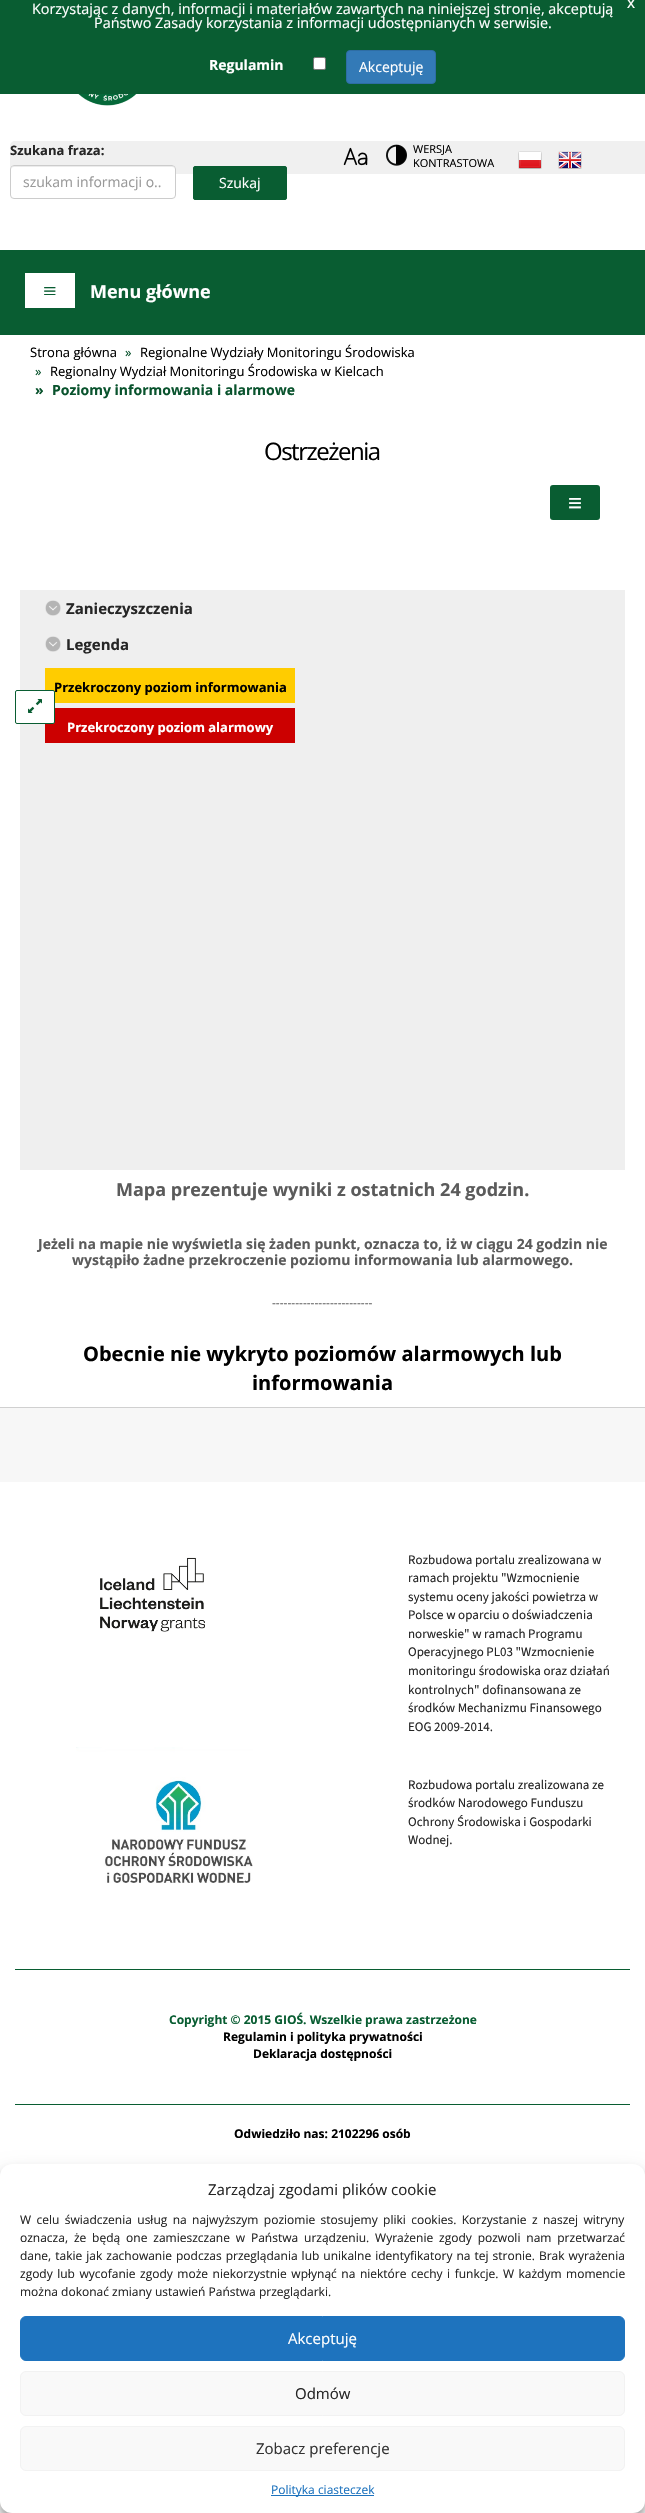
#include "include/core/SkBlurTypes.h"
#include "include/core/SkCanvas.h"
#include "include/core/SkData.h"
#include "include/core/SkFont.h"
#include "include/core/SkFontMgr.h"
#include "include/core/SkImage.h"
#include "include/core/SkMaskFilter.h"
#include "include/core/SkPaint.h"
#include "include/core/SkPathBuilder.h"
#include "include/core/SkTextBlob.h"
#include "include/effects/SkDashPathEffect.h"
#include "include/effects/SkGradientShader.h"
#include "include/utils/SkParsePath.h"

extern sk_sp<SkFontMgr> fontMgr;

static SkFont font(const char* family, int weight, float size, bool italic = false) {
    SkFontStyle style(weight, SkFontStyle::kNormal_Width,
        italic ? SkFontStyle::kItalic_Slant : SkFontStyle::kUpright_Slant);
    SkFont result(fontMgr->matchFamilyStyle(family, style), size);
    result.setSubpixel(true);
    return result;
}

static void drawLabel(SkCanvas* canvas, const char* s, float x, float y, const SkFont& font, SkColor color) {
    SkPaint ink(SkColor4f::FromColor(color));
    ink.setAntiAlias(true);
    canvas->drawString(s, x, y, font, ink);
}

static void drawTracked(SkCanvas* canvas, const char* s, float x, float y, const SkFont& font, const SkPaint& ink, float letter, float word) {
    std::vector<SkGlyphID> glyphs(font.countText(s, strlen(s), SkTextEncoding::kUTF8));
    std::vector<float> xs(glyphs.size());
    font.textToGlyphs(s, strlen(s), SkTextEncoding::kUTF8, glyphs);
    font.getXPos(glyphs, xs, x);
    float extra = 0;
    for (size_t i = 0; i < glyphs.size(); i++) {
        xs[i] += extra;
        extra += letter + word * (glyphs[i] == font.unicharToGlyph(' '));
    }
    canvas->drawTextBlob(SkTextBlob::MakeFromPosHGlyphs(glyphs, xs, y, font), 0, 0, ink);
}

static void fillRect(SkCanvas* canvas, float x, float y, float w, float h, SkColor color) {
    SkPaint ink(SkColor4f::FromColor(color));
    ink.setAntiAlias(true);
    canvas->drawRect(SkRect::MakeXYWH(x, y, w, h), ink);
}

static void fillRRect(SkCanvas* canvas, float x, float y, float w, float h, float radius, SkColor color) {
    SkPaint ink(SkColor4f::FromColor(color));
    ink.setAntiAlias(true);
    canvas->drawRoundRect(SkRect::MakeXYWH(x, y, w, h), radius, radius, ink);
}

static void drawPhoto(SkCanvas* canvas, const char* path, float x, float y, float w, float h) {
    auto image = SkImages::DeferredFromEncodedData(SkData::MakeFromFileName(path));
    canvas->drawImageRect(image, SkRect::MakeXYWH(x, y, w, h), SkSamplingOptions());
}

static SkPath parsePath(const char* data, bool evenOdd = false) {
    SkPath result = *SkParsePath::FromSVGString(data);
    if (evenOdd) result.setFillType(SkPathFillType::kEvenOdd);
    return result;
}

void draw(SkCanvas* canvas) {
    SkPaint paint;
    paint.setAntiAlias(true);
    canvas->clear(0xFFFFFFFF);
    fillRect(canvas, 0, 0, 645, 94, 0xFF095D32);
    SkFont font1 = font("Open Sans", 400, 14.4f);
    drawLabel(canvas, "Korzystając z danych, informacji i materiałów zawartych na niniejszej stronie, akceptują", 32, 14, font1, 0xFFFFFFFF);
    drawLabel(canvas, "Państwo Zasady korzystania z informacji udostępnianych w serwisie.", 94, 28, font1, 0xFFFFFFFF);
    SkFont font2 = font("Liberation Sans", 400, 16);
    drawLabel(canvas, "x", 627, 8, font2, 0xFFFFFFFF);
    SkFont font3 = font("Open Sans", 700, 14);
    drawLabel(canvas, "Regulamin", 209, 70, font3, 0xFFFFFFFF);
    paint.setColor(0xFFFFFFFF);
    canvas->drawRoundRect(SkRect::MakeXYWH(313.5f, 57.5f, 12, 12), 1.5f, 1.5f, paint);
    paint.setStroke(true);
    paint.setStrokeWidth(1);
    paint.setColor(0xFF767676);
    canvas->drawRoundRect(SkRect::MakeXYWH(313.5f, 57.5f, 12, 12), 1.5f, 1.5f, paint);
    paint.setStroke(false);
    paint.setColor(0xFF337AB7);
    canvas->drawRoundRect(SkRect::MakeXYWH(346.5f, 50.5f, 89, 33), 3.5f, 3.5f, paint);
    paint.setStroke(true);
    paint.setColor(0xFF2E6DA4);
    canvas->drawRoundRect(SkRect::MakeXYWH(346.5f, 50.5f, 89, 33), 3.5f, 3.5f, paint);
    SkFont font4 = font("Open Sans", 400, 14);
    drawLabel(canvas, "Akceptuję", 359, 72, font4, 0xFFFFFFFF);
    drawPhoto(canvas, "assets/img1.png", 78, 94, 59, 12);
    fillRRect(canvas, 10, 141, 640, 33, 5, 0xFFF0F0F0);
    SkFont font5 = font("Open Sans", 700, 13);
    drawLabel(canvas, "Szukana fraza:", 10, 155, font5, 0xFF262626);
    fillRRect(canvas, 10, 165, 166, 34, 4, 0xFFFFFFFF);
    paint.setStroke(false);
    paint.setColor(0xFFECECEC);
    canvas->drawPath(parsePath("M14 167H172C174 167 175 168 175 170C175 168 174 166 172 166H14C12 166 11 168 11 170C11 168 12 167 14 167Z"), paint);
    paint.setStroke(true);
    paint.setColor(0xFFCCCCCC);
    canvas->drawRoundRect(SkRect::MakeXYWH(10.5f, 165.5f, 165, 33), 3.5f, 3.5f, paint);
    drawLabel(canvas, "szukam informacji o..", 23, 187, font4, 0xFF999999);
    paint.setStroke(false);
    paint.setColor(0xFF095D32);
    canvas->drawRoundRect(SkRect::MakeXYWH(193.5f, 166.5f, 93, 33), 1.5f, 1.5f, paint);
    paint.setStroke(true);
    canvas->drawRoundRect(SkRect::MakeXYWH(193.5f, 166.5f, 93, 33), 1.5f, 1.5f, paint);
    drawLabel(canvas, "Szukaj", 219, 188, font4, 0xFFFFFFFF);
    drawPhoto(canvas, "assets/img2.png", 343, 147, 25, 19);
    drawPhoto(canvas, "assets/img3.png", 386, 144, 21, 22);
    SkFont font6 = font("Open Sans", 400, 11);
    drawLabel(canvas, "WERSJA", 413, 153, font6, 0xFF000000);
    drawLabel(canvas, "KONTRASTOWA", 413, 167, font6, 0xFF000000);
    drawPhoto(canvas, "assets/img4.png", 518, 151, 24, 18);
    drawPhoto(canvas, "assets/img5.png", 558, 151, 24, 18);
    fillRect(canvas, 0, 250, 645, 85, 0xFF095D32);
    fillRect(canvas, 25, 273, 50, 35, 0xFFFFFFFF);
    SkFont font7 = font("Liberation Serif", 400, 24);
    drawLabel(canvas, "≡", 43, 299, font7, 0xFF095D32);
    SkFont font8 = font("Open Sans", 700, 18);
    drawLabel(canvas, "Menu główne", 90, 298, font8, 0xFFFFFFFF);
    SkFont font9 = font("Open Sans", 400, 13);
    drawLabel(canvas, "Strona główna", 30, 357, font9, 0xFF000000);
    drawLabel(canvas, "»", 125, 357, font9, 0xFF09532D);
    drawLabel(canvas, "Regionalne Wydziały Monitoringu Środowiska", 140, 357, font9, 0xFF000000);
    drawLabel(canvas, "»", 35, 376, font9, 0xFF09532D);
    drawLabel(canvas, "Regionalny Wydział Monitoringu Środowiska w Kielcach", 50, 376, font9, 0xFF000000);
    drawLabel(canvas, "»", 35, 395, font3, 0xFF09532D);
    drawLabel(canvas, "Poziomy informowania i alarmowe", 52, 395, font3, 0xFF09532D);
    SkFont font10 = font("Open Sans", 400, 24);
    paint.setStroke(false);
    paint.setColor(0xFF000000);
    drawTracked(canvas, "Ostrzeżenia", 264, 460, font10, paint, -1.5f, 0);
    fillRRect(canvas, 550, 485, 50, 35, 3, 0xFF095D32);
    SkFont font11 = font("Liberation Sans", 400, 24);
    drawLabel(canvas, "≡", 568, 511, font11, 0xFFFFFFFF);
    fillRect(canvas, 20, 590, 605, 580, 0xFFEFEFEF);
    fillRect(canvas, 45, 668, 250, 35, 0xFFFFCC00);
    drawLabel(canvas, "Przekroczony poziom informowania", 54, 692, font5, 0xFF000000);
    fillRect(canvas, 45, 708, 250, 35, 0xFFCC0000);
    paint.setColor(0xFFFFFFFF);
    canvas->drawRoundRect(SkRect::MakeXYWH(15.5f, 690.5f, 39, 33), 1.5f, 1.5f, paint);
    paint.setStroke(true);
    paint.setColor(0xFF095D32);
    canvas->drawRoundRect(SkRect::MakeXYWH(15.5f, 690.5f, 39, 33), 1.5f, 1.5f, paint);
    drawPhoto(canvas, "assets/img6.png", 28, 699, 14, 14);
    drawPhoto(canvas, "assets/img7.png", 45, 600, 16, 16);
    SkFont font12 = font("Open Sans", 700, 15);
    drawLabel(canvas, "Zanieczyszczenia", 66, 614, font12, 0xFF262626);
    drawPhoto(canvas, "assets/img7.png", 45, 636, 16, 16);
    drawLabel(canvas, "Legenda", 66, 650, font12, 0xFF262626);
    drawLabel(canvas, "Przekroczony poziom alarmowy", 67, 732, font5, 0xFFFFFFFF);
    drawLabel(canvas, "Mapa prezentuje wyniki z ostatnich 24 godzin.", 116, 1196, font8, 0xFF5B5B5B);
    drawLabel(canvas, "Jeżeli na mapie nie wyświetla się żaden punkt, oznacza to, iż w ciągu 24 godzin nie", 38, 1249, font3, 0xFF5B5B5B);
    drawLabel(canvas, "wystąpiło żadne przekroczenie poziomu informowania lub alarmowego.", 72, 1265, font3, 0xFF5B5B5B);
    SkFont font13 = font("Open Sans", 400, 12);
    drawLabel(canvas, "--------------------------", 272, 1307, font13, 0xFF5B5B5B);
    SkFont font14 = font("Open Sans", 700, 20);
    drawLabel(canvas, "Obecnie nie wykryto poziomów alarmowych lub", 83, 1361, font14, 0xFF000000);
    drawLabel(canvas, "informowania", 252, 1390, font14, 0xFF000000);
    fillRect(canvas, 0, 1408, 645, 74, 0xFFF7F7F7);
    fillRect(canvas, 0, 1407, 645, 1, 0xFFD0D0D0);
    drawPhoto(canvas, "assets/img8.png", 100, 1557, 105, 75);
    SkFont font15 = font("Source Sans 3", 400, 13);
    drawLabel(canvas, "Rozbudowa portalu zrealizowana w", 408, 1564, font15, 0xFF262626);
    drawLabel(canvas, "ramach projektu \"Wzmocnienie", 408, 1582, font15, 0xFF262626);
    drawLabel(canvas, "systemu oceny jakości powietrza w", 408, 1601, font15, 0xFF262626);
    drawLabel(canvas, "Polsce w oparciu o doświadczenia", 408, 1619, font15, 0xFF262626);
    drawLabel(canvas, "norweskie\" w ramach Programu", 408, 1638, font15, 0xFF262626);
    drawLabel(canvas, "Operacyjnego PL03 \"Wzmocnienie", 408, 1656, font15, 0xFF262626);
    drawLabel(canvas, "monitoringu środowiska oraz działań", 408, 1675, font15, 0xFF262626);
    drawLabel(canvas, "kontrolnych\" dofinansowana ze", 408, 1694, font15, 0xFF262626);
    drawLabel(canvas, "środków Mechanizmu Finansowego", 408, 1712, font15, 0xFF262626);
    drawLabel(canvas, "EOG 2009-2014.", 408, 1731, font15, 0xFF262626);
    drawPhoto(canvas, "assets/img9.png", 76, 1747, 177, 136);
    drawLabel(canvas, "Rozbudowa portalu zrealizowana ze", 408, 1789, font15, 0xFF262626);
    drawLabel(canvas, "środków Narodowego Funduszu", 408, 1807, font15, 0xFF262626);
    drawLabel(canvas, "Ochrony Środowiska i Gospodarki", 408, 1826, font15, 0xFF262626);
    drawLabel(canvas, "Wodnej.", 408, 1844, font15, 0xFF262626);
    fillRect(canvas, 15, 1969, 615, 1, 0xFF095D32);
    fillRect(canvas, 15, 2104, 615, 1, 0xFF095D32);
    SkFont font16 = font("Open Sans", 700, 12);
    drawLabel(canvas, "Copyright © 2015 GIOŚ. Wszelkie prawa zastrzeżone", 169, 2024, font16, 0xFF095D32);
    drawLabel(canvas, "Regulamin i polityka prywatności", 223, 2041, font16, 0xFF000000);
    drawLabel(canvas, "Deklaracja dostępności", 253, 2058, font16, 0xFF000000);
    drawLabel(canvas, "Odwiedziło nas: 2102296 osób", 234, 2138, font16, 0xFF000000);
    paint.setStroke(false);
    paint.setColor(0x3B000000);
    paint.setMaskFilter(SkMaskFilter::MakeBlur(kNormal_SkBlurStyle, 3));
    canvas->drawRoundRect(SkRect::MakeXYWH(0, 2170, 645, 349), 12, 12, paint);
    paint.setMaskFilter(nullptr);
    paint.setColor(0x30000000);
    paint.setMaskFilter(SkMaskFilter::MakeBlur(kNormal_SkBlurStyle, 10));
    canvas->drawRoundRect(SkRect::MakeXYWH(0, 2174, 645, 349), 12, 12, paint);
    paint.setMaskFilter(nullptr);
    fillRRect(canvas, 0, 2164, 645, 349, 12, 0xFFFFFFFF);
    SkFont font17 = font("Open Sans", 400, 15);
    drawLabel(canvas, "Zarządzaj zgodami plików cookie", 208, 2195, font17, 0xFF262626);
    paint.setColor(0xFF262626);
    drawTracked(canvas, "W celu świadczenia usług na najwyższym poziomie stosujemy pliki cookies. Korzystanie z naszej witryny", 20, 2224, font13, paint, 0, 2.25f);
    drawTracked(canvas, "oznacza, że będą one zamieszczane w Państwa urządzeniu. Wyrażenie zgody pozwoli nam przetwarzać", 20, 2242, font13, paint, 0, 2.75f);
    drawTracked(canvas, "dane, takie jak zachowanie podczas przeglądania lub unikalne identyfikatory na tej stronie. Brak wyrażenia", 20, 2260, font13, paint, 0, 0.9f);
    drawTracked(canvas, "zgody lub wycofanie zgody może niekorzystnie wpłynąć na niektóre cechy i funkcje. W każdym momencie", 20, 2278, font13, paint, 0, 1.4f);
    drawLabel(canvas, "można dokonać zmiany ustawień Państwa przeglądarki.", 20, 2296, font13, 0xFF262626);
    paint.setColor(0xFF1E73BE);
    canvas->drawRoundRect(SkRect::MakeXYWH(20.5f, 2316.5f, 604, 44), 5.5f, 5.5f, paint);
    paint.setStroke(true);
    canvas->drawRoundRect(SkRect::MakeXYWH(20.5f, 2316.5f, 604, 44), 5.5f, 5.5f, paint);
    drawLabel(canvas, "Akceptuję", 288, 2344, font17, 0xFFFFFFFF);
    paint.setStroke(false);
    paint.setColor(0xFFF9F9F9);
    canvas->drawRoundRect(SkRect::MakeXYWH(20.5f, 2371.5f, 604, 44), 5.5f, 5.5f, paint);
    paint.setStroke(true);
    paint.setColor(0xFFF2F2F2);
    canvas->drawRoundRect(SkRect::MakeXYWH(20.5f, 2371.5f, 604, 44), 5.5f, 5.5f, paint);
    drawLabel(canvas, "Odmów", 295, 2399, font17, 0xFF262626);
    paint.setStroke(false);
    paint.setColor(0xFFF9F9F9);
    canvas->drawRoundRect(SkRect::MakeXYWH(20.5f, 2426.5f, 604, 44), 5.5f, 5.5f, paint);
    paint.setStroke(true);
    paint.setColor(0xFFF2F2F2);
    canvas->drawRoundRect(SkRect::MakeXYWH(20.5f, 2426.5f, 604, 44), 5.5f, 5.5f, paint);
    drawLabel(canvas, "Zobacz preferencje", 256, 2454, font17, 0xFF333333);
    fillRect(canvas, 271, 2495, 103, 1, 0xFF1E73BE);
    drawLabel(canvas, "Polityka ciasteczek", 271, 2494, font13, 0xFF1E73BE);
}
